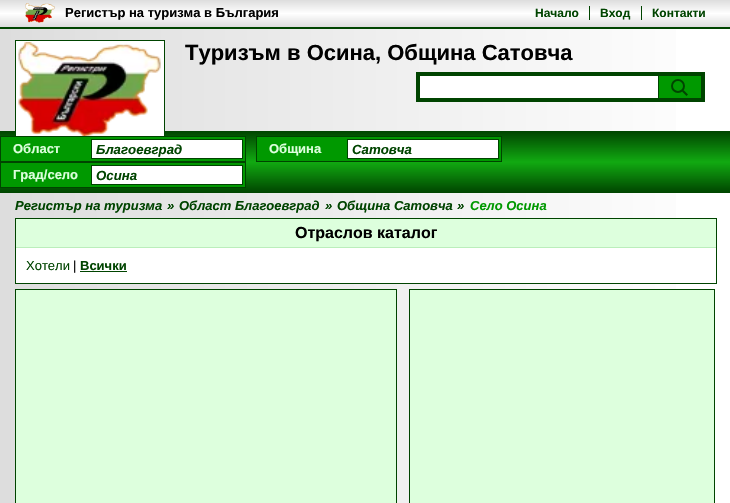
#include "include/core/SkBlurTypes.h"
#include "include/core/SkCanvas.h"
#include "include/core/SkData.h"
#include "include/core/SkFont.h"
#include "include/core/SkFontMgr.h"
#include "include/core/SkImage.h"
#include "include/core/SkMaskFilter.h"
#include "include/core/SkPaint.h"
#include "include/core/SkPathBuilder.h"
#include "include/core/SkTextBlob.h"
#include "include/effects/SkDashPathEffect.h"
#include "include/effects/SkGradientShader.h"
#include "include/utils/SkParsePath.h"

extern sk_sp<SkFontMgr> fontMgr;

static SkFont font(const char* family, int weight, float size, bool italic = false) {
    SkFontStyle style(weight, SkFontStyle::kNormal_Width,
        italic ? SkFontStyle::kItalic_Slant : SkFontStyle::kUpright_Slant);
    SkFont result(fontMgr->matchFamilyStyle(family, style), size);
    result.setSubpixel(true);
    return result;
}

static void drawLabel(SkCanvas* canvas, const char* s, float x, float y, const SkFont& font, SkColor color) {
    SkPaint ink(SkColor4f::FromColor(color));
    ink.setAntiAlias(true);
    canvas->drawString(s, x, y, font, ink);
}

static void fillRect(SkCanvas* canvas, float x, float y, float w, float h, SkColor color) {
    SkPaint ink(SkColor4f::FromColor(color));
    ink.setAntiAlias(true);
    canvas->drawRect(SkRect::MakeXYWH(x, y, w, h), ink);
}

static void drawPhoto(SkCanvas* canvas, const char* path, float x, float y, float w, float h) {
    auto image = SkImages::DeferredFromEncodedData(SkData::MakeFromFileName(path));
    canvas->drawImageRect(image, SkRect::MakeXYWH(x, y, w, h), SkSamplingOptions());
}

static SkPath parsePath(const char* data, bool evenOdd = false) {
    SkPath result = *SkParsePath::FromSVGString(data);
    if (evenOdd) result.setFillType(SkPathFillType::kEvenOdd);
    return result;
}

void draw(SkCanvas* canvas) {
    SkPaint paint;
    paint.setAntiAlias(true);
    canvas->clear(0xFFFFFFFF);
    {
        const SkColor colors[] = {0xFFFFFFFF, 0xFFDDDDDD};
        const float stops[] = {0, 1};
        const SkPoint ends[] = {{730, 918}, {0, 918}};
        paint.setShader(SkGradientShader::MakeLinear(ends, colors, stops, 2, SkTileMode::kClamp));
        paint.setAlpha(255);
    }
    canvas->drawRect(SkRect::MakeXYWH(0, 29, 676, 474), paint);
    {
        const SkColor colors[] = {0xFFDDDDDD, 0xFFFFFFFF, 0xFFDDDDDD};
        const float stops[] = {0, 0.5f, 1};
        const SkPoint ends[] = {{365, 27}, {365, 0}};
        paint.setShader(SkGradientShader::MakeLinear(ends, colors, stops, 3, SkTileMode::kClamp));
        paint.setAlpha(255);
    }
    canvas->drawRect(SkRect::MakeXYWH(0, 0, 730, 27), paint);
    fillRect(canvas, 0, 27, 730, 2, 0xFF004400);
    drawPhoto(canvas, "assets/img1.png", 25, 3, 30, 20);
    SkFont font1 = font("Liberation Sans", 700, 13);
    drawLabel(canvas, "Регистър на туризма в България", 65, 17, font1, 0xFF000000);
    SkFont font2 = font("Liberation Sans", 700, 12);
    drawLabel(canvas, "Начало", 535, 17, font2, 0xFF004400);
    drawLabel(canvas, "Вход", 600, 17, font2, 0xFF004400);
    fillRect(canvas, 589, 6, 1, 14, 0xFF004400);
    drawLabel(canvas, "Контакти", 652, 17, font2, 0xFF004400);
    fillRect(canvas, 641, 6, 1, 14, 0xFF004400);
    {
        const SkColor colors[] = {0xFF004400, 0xFF11AA11, 0xFF004400};
        const float stops[] = {0, 0.5f, 1};
        const SkPoint ends[] = {{365, 193}, {365, 131}};
        paint.setShader(SkGradientShader::MakeLinear(ends, colors, stops, 3, SkTileMode::kClamp));
        paint.setAlpha(255);
    }
    canvas->drawRect(SkRect::MakeXYWH(0, 131, 730, 62), paint);
    fillRect(canvas, 16, 41, 148, 95, 0xFFFFFFFF);
    paint.setStroke(true);
    paint.setStrokeWidth(1);
    paint.setShader(nullptr);
    paint.setColor(0xFF004400);
    canvas->drawRect(SkRect::MakeXYWH(15.5f, 40.5f, 149, 99), paint);
    drawPhoto(canvas, "assets/img2.png", 18, 42, 143, 94);
    SkFont font3 = font("Liberation Sans", 700, 22);
    drawLabel(canvas, "Туризъм в Осина, Община Сатовча", 185, 60, font3, 0xFF000000);
    fillRect(canvas, 416, 72, 289, 30, 0xFF004400);
    fillRect(canvas, 420, 76, 238, 22, 0xFFFFFFFF);
    fillRect(canvas, 659, 76, 42, 22, 0xFF009900);
    paint.setStrokeWidth(2);
    canvas->drawCircle(678, 86, 6, paint);
    paint.setStroke(false);
    canvas->drawPath(parsePath("M683.5 90L688 94.5L686.5 96L682 91.5Z"), paint);
    paint.setColor(0xFF009900);
    canvas->drawRect(SkRect::MakeXYWH(0.5f, 136.5f, 245, 25), paint);
    paint.setStroke(true);
    paint.setStrokeWidth(1);
    paint.setColor(0xFF004400);
    canvas->drawRect(SkRect::MakeXYWH(0.5f, 136.5f, 245, 25), paint);
    drawLabel(canvas, "Област", 13, 153, font1, 0xFFDDFFDD);
    paint.setStroke(false);
    paint.setColor(0xFFFFFFFF);
    canvas->drawRect(SkRect::MakeXYWH(91.5f, 139.5f, 151, 19), paint);
    paint.setStroke(true);
    paint.setColor(0xFF004400);
    canvas->drawRect(SkRect::MakeXYWH(91.5f, 139.5f, 151, 19), paint);
    SkFont font4 = font("Liberation Sans", 700, 13.25f, true);
    drawLabel(canvas, "Благоевград", 96, 154, font4, 0xFF004400);
    paint.setStroke(false);
    paint.setColor(0xFF009900);
    canvas->drawRect(SkRect::MakeXYWH(256.5f, 136.5f, 245, 25), paint);
    paint.setStroke(true);
    paint.setColor(0xFF004400);
    canvas->drawRect(SkRect::MakeXYWH(256.5f, 136.5f, 245, 25), paint);
    drawLabel(canvas, "Община", 269, 153, font1, 0xFFDDFFDD);
    paint.setStroke(false);
    paint.setColor(0xFFFFFFFF);
    canvas->drawRect(SkRect::MakeXYWH(347.5f, 139.5f, 151, 19), paint);
    paint.setStroke(true);
    paint.setColor(0xFF004400);
    canvas->drawRect(SkRect::MakeXYWH(347.5f, 139.5f, 151, 19), paint);
    drawLabel(canvas, "Сатовча", 352, 154, font4, 0xFF004400);
    paint.setStroke(false);
    paint.setColor(0xFF009900);
    canvas->drawRect(SkRect::MakeXYWH(0.5f, 162.5f, 245, 25), paint);
    paint.setStroke(true);
    paint.setColor(0xFF004400);
    canvas->drawRect(SkRect::MakeXYWH(0.5f, 162.5f, 245, 25), paint);
    drawLabel(canvas, "Град/село", 13, 179, font1, 0xFFDDFFDD);
    paint.setStroke(false);
    paint.setColor(0xFFFFFFFF);
    canvas->drawRect(SkRect::MakeXYWH(91.5f, 165.5f, 151, 19), paint);
    paint.setStroke(true);
    paint.setColor(0xFF004400);
    canvas->drawRect(SkRect::MakeXYWH(91.5f, 165.5f, 151, 19), paint);
    drawLabel(canvas, "Осина", 96, 180, font4, 0xFF004400);
    SkFont font5 = font("Liberation Sans", 700, 13, true);
    drawLabel(canvas, "Регистър на туризма", 15, 210, font5, 0xFF004400);
    drawLabel(canvas, "»", 167, 210, font5, 0xFF004400);
    drawLabel(canvas, "Област Благоевград", 179, 210, font5, 0xFF004400);
    drawLabel(canvas, "»", 325, 210, font5, 0xFF004400);
    drawLabel(canvas, "Община Сатовча", 337, 210, font5, 0xFF004400);
    drawLabel(canvas, "»", 457, 210, font5, 0xFF004400);
    drawLabel(canvas, "Село Осина", 470, 210, font5, 0xFF009900);
    fillRect(canvas, 16, 248, 660, 35, 0xFFFFFFFF);
    canvas->drawRect(SkRect::MakeXYWH(15.5f, 218.5f, 701, 65), paint);
    fillRect(canvas, 16, 219, 700, 28, 0xFFDDFFDD);
    fillRect(canvas, 16, 247, 700, 1, 0xFFBBEEBB);
    SkFont font6 = font("Liberation Sans", 700, 16);
    drawLabel(canvas, "Отраслов каталог", 295, 238, font6, 0xFF000000);
    SkFont font7 = font("Liberation Sans", 400, 13);
    drawLabel(canvas, "Хотели", 26, 270, font7, 0xFF004400);
    drawLabel(canvas, "|", 73, 270, font7, 0xFF000000);
    drawLabel(canvas, "Всички", 80, 270, font1, 0xFF004400);
    fillRect(canvas, 80, 271, 47, 1, 0xFF004400);
    paint.setStroke(false);
    paint.setColor(0xFFDDFFDD);
    canvas->drawRect(SkRect::MakeXYWH(15.5f, 289.5f, 381, 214), paint);
    paint.setStroke(true);
    paint.setColor(0xFF004400);
    canvas->drawRect(SkRect::MakeXYWH(15.5f, 289.5f, 381, 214), paint);
    paint.setStroke(false);
    paint.setColor(0xFFDDFFDD);
    canvas->drawRect(SkRect::MakeXYWH(409.5f, 289.5f, 305, 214), paint);
    paint.setStroke(true);
    paint.setColor(0xFF004400);
    canvas->drawRect(SkRect::MakeXYWH(409.5f, 289.5f, 305, 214), paint);
}
